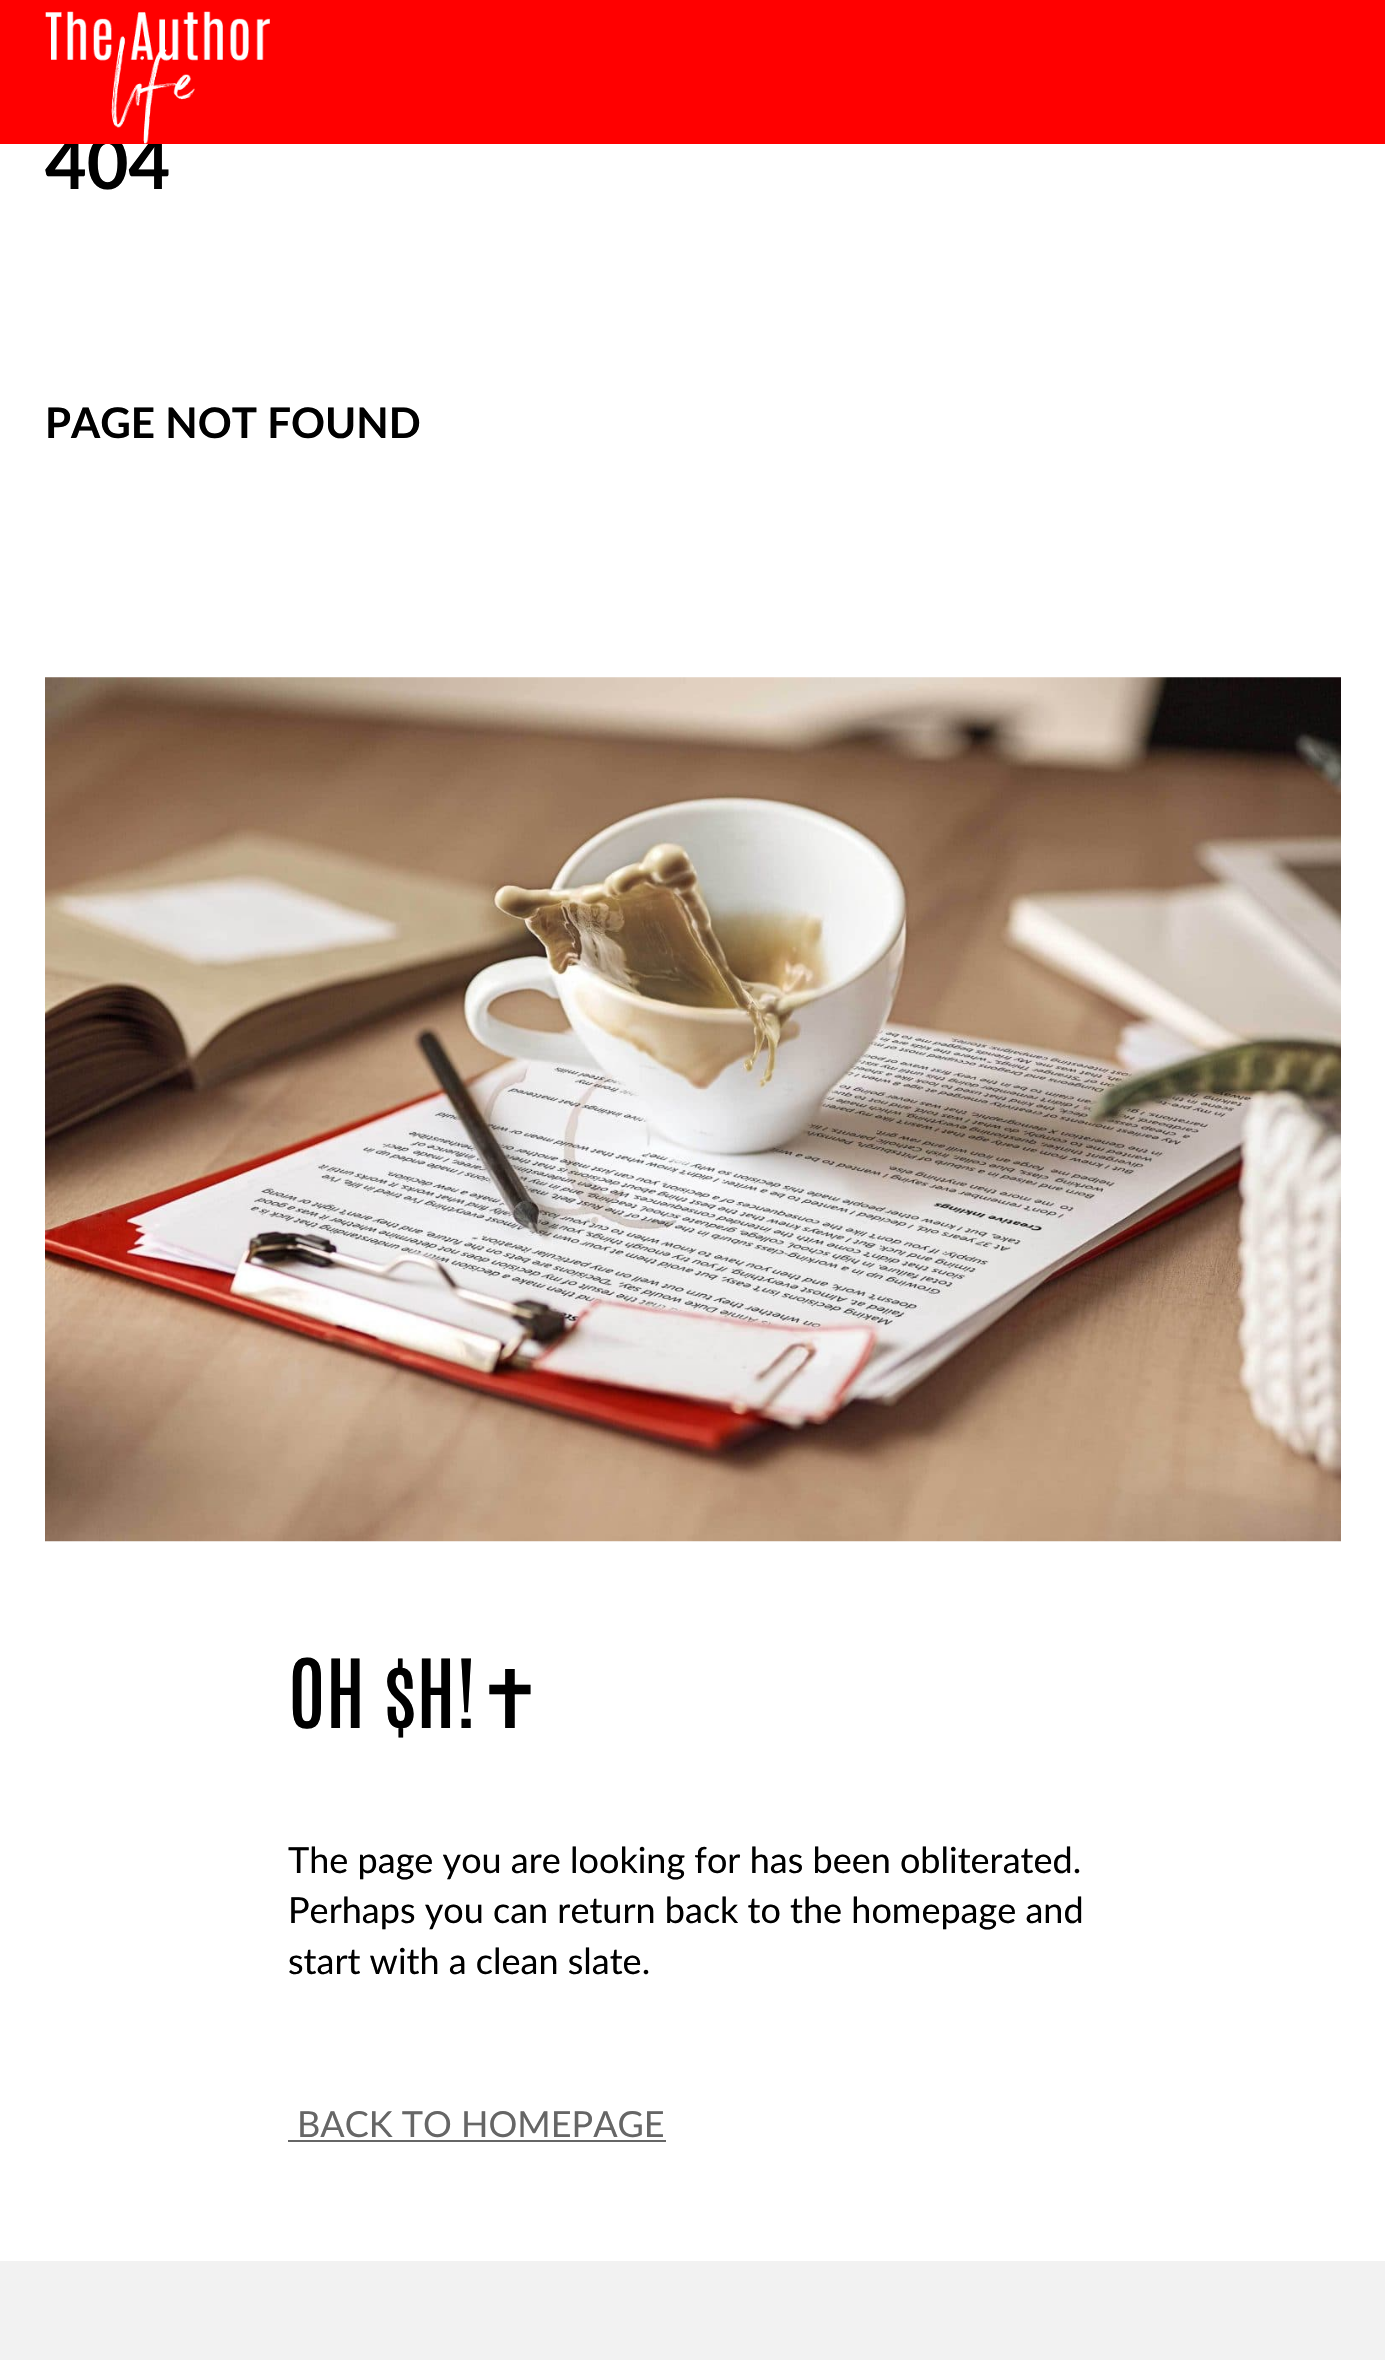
#include "include/core/SkBlurTypes.h"
#include "include/core/SkCanvas.h"
#include "include/core/SkData.h"
#include "include/core/SkFont.h"
#include "include/core/SkFontMgr.h"
#include "include/core/SkImage.h"
#include "include/core/SkMaskFilter.h"
#include "include/core/SkPaint.h"
#include "include/core/SkPathBuilder.h"
#include "include/core/SkTextBlob.h"
#include "include/effects/SkDashPathEffect.h"
#include "include/effects/SkGradientShader.h"
#include "include/utils/SkParsePath.h"

extern sk_sp<SkFontMgr> fontMgr;

static SkFont font(const char* family, int weight, float size, bool italic = false) {
    SkFontStyle style(weight, SkFontStyle::kNormal_Width,
        italic ? SkFontStyle::kItalic_Slant : SkFontStyle::kUpright_Slant);
    SkFont result(fontMgr->matchFamilyStyle(family, style), size);
    result.setSubpixel(true);
    return result;
}

static void drawLabel(SkCanvas* canvas, const char* s, float x, float y, const SkFont& font, SkColor color) {
    SkPaint ink(SkColor4f::FromColor(color));
    ink.setAntiAlias(true);
    canvas->drawString(s, x, y, font, ink);
}

static void fillRect(SkCanvas* canvas, float x, float y, float w, float h, SkColor color) {
    SkPaint ink(SkColor4f::FromColor(color));
    ink.setAntiAlias(true);
    canvas->drawRect(SkRect::MakeXYWH(x, y, w, h), ink);
}

static void drawPhoto(SkCanvas* canvas, const char* path, float x, float y, float w, float h) {
    auto image = SkImages::DeferredFromEncodedData(SkData::MakeFromFileName(path));
    canvas->drawImageRect(image, SkRect::MakeXYWH(x, y, w, h), SkSamplingOptions());
}

void draw(SkCanvas* canvas) {
    SkPaint paint;
    paint.setAntiAlias(true);
    canvas->clear(0xFFF2F2F2);
    fillRect(canvas, 0, 144, 1385, 2117, 0xFFFFFFFF);
    SkFont font1 = font("Lato", 700, 72);
    drawLabel(canvas, "404", 45, 189, font1, 0xFF000000);
    fillRect(canvas, 0, 0, 1385, 144, 0xFFFF0000);
    drawPhoto(canvas, "assets/img1.png", 45, 11, 225, 133);
    SkFont font2 = font("Lato", 700, 42.1f);
    drawLabel(canvas, "PAGE NOT FOUND", 45, 438, font2, 0xFF000000);
    drawPhoto(canvas, "assets/img2.png", 45, 677, 1296, 865);
    SkFont font3 = font("Antonio", 500, 81);
    drawLabel(canvas, "OH $H!", 288, 1728, font3, 0xFF000000);
    SkFont font4 = font("DejaVu Sans", 400, 81);
    drawLabel(canvas, "✝", 476, 1728, font4, 0xFF000000);
    SkFont font5 = font("Lato", 400, 36);
    drawLabel(canvas, "The page you are looking for has been obliterated.", 288, 1873, font5, 0xFF000000);
    drawLabel(canvas, "Perhaps you can return back to the homepage and", 288, 1923, font5, 0xFF000000);
    drawLabel(canvas, "start with a clean slate.", 288, 1974, font5, 0xFF000000);
    drawLabel(canvas, "BACK TO HOMEPAGE", 297, 2137, font5, 0xFF666666);
    fillRect(canvas, 288, 2140, 378, 2, 0xFF666666);
}
